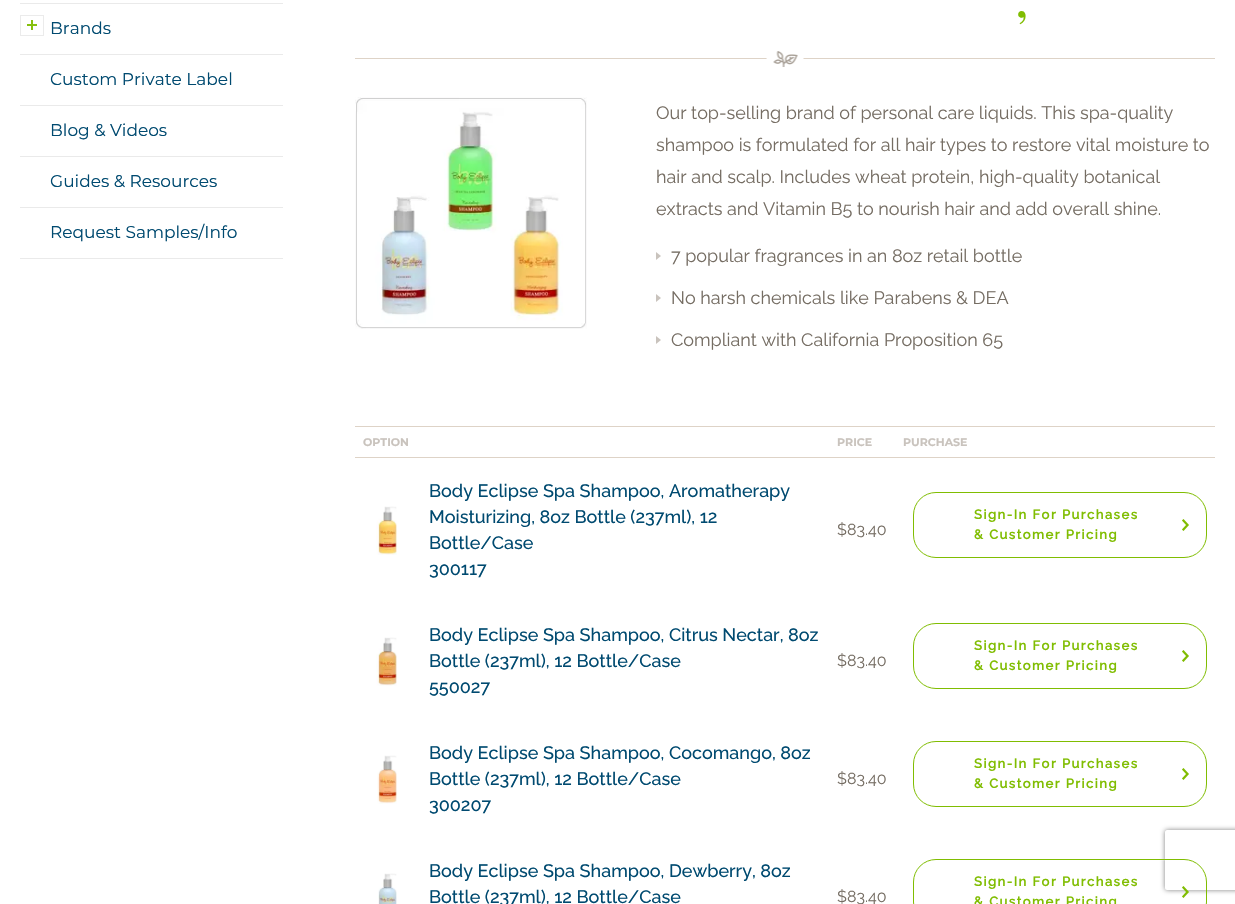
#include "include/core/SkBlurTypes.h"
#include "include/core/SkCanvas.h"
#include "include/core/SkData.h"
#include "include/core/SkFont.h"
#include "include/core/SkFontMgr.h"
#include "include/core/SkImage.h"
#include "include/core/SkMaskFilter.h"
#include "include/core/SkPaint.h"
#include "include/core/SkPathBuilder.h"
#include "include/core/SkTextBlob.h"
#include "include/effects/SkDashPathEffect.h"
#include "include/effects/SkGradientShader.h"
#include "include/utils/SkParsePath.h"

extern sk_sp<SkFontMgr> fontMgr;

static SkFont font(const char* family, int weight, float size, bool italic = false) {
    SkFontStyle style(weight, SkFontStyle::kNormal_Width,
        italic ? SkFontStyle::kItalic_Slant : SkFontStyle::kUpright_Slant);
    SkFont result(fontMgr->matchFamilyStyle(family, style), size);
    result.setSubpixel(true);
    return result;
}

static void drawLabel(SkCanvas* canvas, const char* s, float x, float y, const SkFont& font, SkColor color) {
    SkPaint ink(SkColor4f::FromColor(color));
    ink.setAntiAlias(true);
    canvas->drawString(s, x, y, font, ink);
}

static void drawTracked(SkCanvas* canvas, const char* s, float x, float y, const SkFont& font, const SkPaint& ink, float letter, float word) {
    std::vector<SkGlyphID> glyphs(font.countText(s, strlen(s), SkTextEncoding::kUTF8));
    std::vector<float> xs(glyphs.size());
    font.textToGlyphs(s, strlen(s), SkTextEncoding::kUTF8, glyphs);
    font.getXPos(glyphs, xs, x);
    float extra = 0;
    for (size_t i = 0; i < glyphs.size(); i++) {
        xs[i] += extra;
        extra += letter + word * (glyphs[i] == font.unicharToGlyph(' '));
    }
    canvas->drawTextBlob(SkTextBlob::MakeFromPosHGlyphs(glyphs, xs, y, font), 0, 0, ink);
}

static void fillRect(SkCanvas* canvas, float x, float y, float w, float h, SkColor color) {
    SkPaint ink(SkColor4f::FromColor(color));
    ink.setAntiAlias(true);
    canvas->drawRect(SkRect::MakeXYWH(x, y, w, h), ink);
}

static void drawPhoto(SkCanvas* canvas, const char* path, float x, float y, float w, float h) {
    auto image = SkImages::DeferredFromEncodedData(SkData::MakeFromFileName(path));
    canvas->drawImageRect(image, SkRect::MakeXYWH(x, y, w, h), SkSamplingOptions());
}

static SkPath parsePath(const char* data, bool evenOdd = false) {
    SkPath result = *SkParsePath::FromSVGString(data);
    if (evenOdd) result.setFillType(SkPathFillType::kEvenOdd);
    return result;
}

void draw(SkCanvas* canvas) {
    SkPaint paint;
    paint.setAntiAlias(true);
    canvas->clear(0xFFFFFFFF);
    fillRect(canvas, 20, 3, 263, 1, 0xFFEAEAEA);
    fillRect(canvas, 20, 54, 263, 1, 0xFFEAEAEA);
    drawPhoto(canvas, "assets/img1.png", 20, 15, 24, 21);
    SkFont font1 = font("Montserrat", 400, 17);
    drawLabel(canvas, "Brands", 50, 34, font1, 0xFF004A70);
    fillRect(canvas, 20, 105, 263, 1, 0xFFEAEAEA);
    drawLabel(canvas, "Custom Private Label", 50, 85, font1, 0xFF004A70);
    fillRect(canvas, 20, 156, 263, 1, 0xFFEAEAEA);
    drawLabel(canvas, "Blog & Videos", 50, 136, font1, 0xFF004A70);
    fillRect(canvas, 20, 207, 263, 1, 0xFFEAEAEA);
    drawLabel(canvas, "Guides & Resources", 50, 187, font1, 0xFF004A70);
    fillRect(canvas, 20, 258, 263, 1, 0xFFEAEAEA);
    drawLabel(canvas, "Request Samples/Info", 50, 238, font1, 0xFF004A70);
    SkFont font2 = font("Playfair Display", 400, 52);
    drawLabel(canvas, ",", 1015, 17, font2, 0xFF80BD01);
    drawPhoto(canvas, "assets/img2.png", 355, 51, 860, 16);
    drawPhoto(canvas, "assets/img3.png", 355, 97, 232, 232);
    SkFont font3 = font("Raleway", 400, 18);
    drawLabel(canvas, "Our top-selling brand of personal care liquids. This spa-quality", 656, 119, font3, 0xFF756D63);
    drawLabel(canvas, "shampoo is formulated for all hair types to restore vital moisture to", 656, 151, font3, 0xFF756D63);
    drawLabel(canvas, "hair and scalp. Includes wheat protein, high-quality botanical", 656, 183, font3, 0xFF756D63);
    drawLabel(canvas, "extracts and Vitamin B5 to nourish hair and add overall shine.", 656, 215, font3, 0xFF756D63);
    drawPhoto(canvas, "assets/img4.png", 656, 252, 5, 8);
    drawLabel(canvas, "7 popular fragrances in an 8oz retail bottle", 671, 262, font3, 0xFF756D63);
    drawPhoto(canvas, "assets/img4.png", 656, 294, 5, 8);
    drawLabel(canvas, "No harsh chemicals like Parabens & DEA", 671, 304, font3, 0xFF756D63);
    drawPhoto(canvas, "assets/img4.png", 656, 336, 5, 8);
    drawLabel(canvas, "Compliant with California Proposition 65", 671, 346, font3, 0xFF756D63);
    fillRect(canvas, 355, 426, 860, 1, 0xFFDED3C7);
    fillRect(canvas, 355, 457, 860, 1, 0xFFDED3C7);
    SkFont font4 = font("Montserrat", 700, 11);
    drawLabel(canvas, "OPTION", 363, 446, font4, 0xFFC9C3BD);
    drawLabel(canvas, "PRICE", 837, 446, font4, 0xFFC9C3BD);
    drawLabel(canvas, "PURCHASE", 903, 446, font4, 0xFFC9C3BD);
    drawPhoto(canvas, "assets/img5.png", 376, 506, 21, 49);
    SkFont font5 = font("Raleway", 500, 18);
    drawLabel(canvas, "Body Eclipse Spa Shampoo, Aromatherapy", 429, 497, font5, 0xFF004A70);
    drawLabel(canvas, "Moisturizing, 8oz Bottle (237ml), 12", 429, 523, font5, 0xFF004A70);
    drawLabel(canvas, "Bottle/Case", 429, 549, font5, 0xFF004A70);
    drawLabel(canvas, "300117", 429, 575, font5, 0xFF004A70);
    SkFont font6 = font("Raleway", 400, 16);
    drawLabel(canvas, "$83.40", 837, 535, font6, 0xFF756D63);
    drawPhoto(canvas, "assets/img6.png", 1182, 519, 7, 12);
    paint.setStroke(true);
    paint.setStrokeWidth(1);
    paint.setColor(0xFF80BD01);
    canvas->drawRoundRect(SkRect::MakeXYWH(913.5f, 492.5f, 293, 65), 22.5f, 22.5f, paint);
    SkFont font7 = font("Raleway", 700, 13);
    paint.setStroke(false);
    drawTracked(canvas, "Sign-In For Purchases", 974, 519, font7, paint, 1.5f, 0);
    drawTracked(canvas, "& Customer Pricing", 974, 539, font7, paint, 1.5f, 0);
    drawPhoto(canvas, "assets/img7.png", 376, 637, 21, 49);
    drawLabel(canvas, "Body Eclipse Spa Shampoo, Citrus Nectar, 8oz", 429, 641, font5, 0xFF004A70);
    drawLabel(canvas, "Bottle (237ml), 12 Bottle/Case", 429, 667, font5, 0xFF004A70);
    drawLabel(canvas, "550027", 429, 693, font5, 0xFF004A70);
    drawLabel(canvas, "$83.40", 837, 666, font6, 0xFF756D63);
    drawPhoto(canvas, "assets/img6.png", 1182, 650, 7, 12);
    paint.setStroke(true);
    canvas->drawRoundRect(SkRect::MakeXYWH(913.5f, 623.5f, 293, 65), 22.5f, 22.5f, paint);
    paint.setStroke(false);
    drawTracked(canvas, "Sign-In For Purchases", 974, 650, font7, paint, 1.5f, 0);
    drawTracked(canvas, "& Customer Pricing", 974, 670, font7, paint, 1.5f, 0);
    drawPhoto(canvas, "assets/img8.png", 377, 755, 20, 49);
    drawLabel(canvas, "Body Eclipse Spa Shampoo, Cocomango, 8oz", 429, 759, font5, 0xFF004A70);
    drawLabel(canvas, "Bottle (237ml), 12 Bottle/Case", 429, 785, font5, 0xFF004A70);
    drawLabel(canvas, "300207", 429, 811, font5, 0xFF004A70);
    drawLabel(canvas, "$83.40", 837, 784, font6, 0xFF756D63);
    drawPhoto(canvas, "assets/img6.png", 1182, 768, 7, 12);
    paint.setStroke(true);
    canvas->drawRoundRect(SkRect::MakeXYWH(913.5f, 741.5f, 293, 65), 22.5f, 22.5f, paint);
    paint.setStroke(false);
    drawTracked(canvas, "Sign-In For Purchases", 974, 768, font7, paint, 1.5f, 0);
    drawTracked(canvas, "& Customer Pricing", 974, 788, font7, paint, 1.5f, 0);
    drawPhoto(canvas, "assets/img9.png", 378, 873, 19, 31);
    drawLabel(canvas, "Body Eclipse Spa Shampoo, Dewberry, 8oz", 429, 877, font5, 0xFF004A70);
    drawLabel(canvas, "Bottle (237ml), 12 Bottle/Case", 429, 903, font5, 0xFF004A70);
    drawLabel(canvas, "$83.40", 837, 902, font6, 0xFF756D63);
    canvas->save();
    canvas->clipPath(parsePath("M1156 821H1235V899H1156ZM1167 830H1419C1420 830 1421 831 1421 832V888C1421 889 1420 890 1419 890H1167C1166 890 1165 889 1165 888V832C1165 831 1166 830 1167 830Z", true), true);
    paint.setColor(0xFF808080);
    paint.setMaskFilter(SkMaskFilter::MakeBlur(kNormal_SkBlurStyle, 2.5f));
    canvas->drawRoundRect(SkRect::MakeXYWH(1165, 830, 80, 60), 2, 2, paint);
    paint.setMaskFilter(nullptr);
    canvas->restore();
    drawPhoto(canvas, "assets/img10.png", 1182, 886, 7, 12);
    paint.setColor(0x33FFFFFF);
    canvas->drawPath(parsePath("M936 861H1184C1196 861 1206 871 1206 883C1206 850 1161 860 1143 860H977C959 860 914 850 914 883C914 871 924 861 936 861Z"), paint);
    paint.setStroke(true);
    paint.setColor(0xFF80BD01);
    canvas->drawRoundRect(SkRect::MakeXYWH(913.5f, 859.5f, 293, 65), 22.5f, 22.5f, paint);
    paint.setStroke(false);
    drawTracked(canvas, "Sign-In For Purchases", 974, 886, font7, paint, 1.5f, 0);
    drawTracked(canvas, "& Customer Pricing", 974, 906, font7, paint, 1.5f, 0);
}
